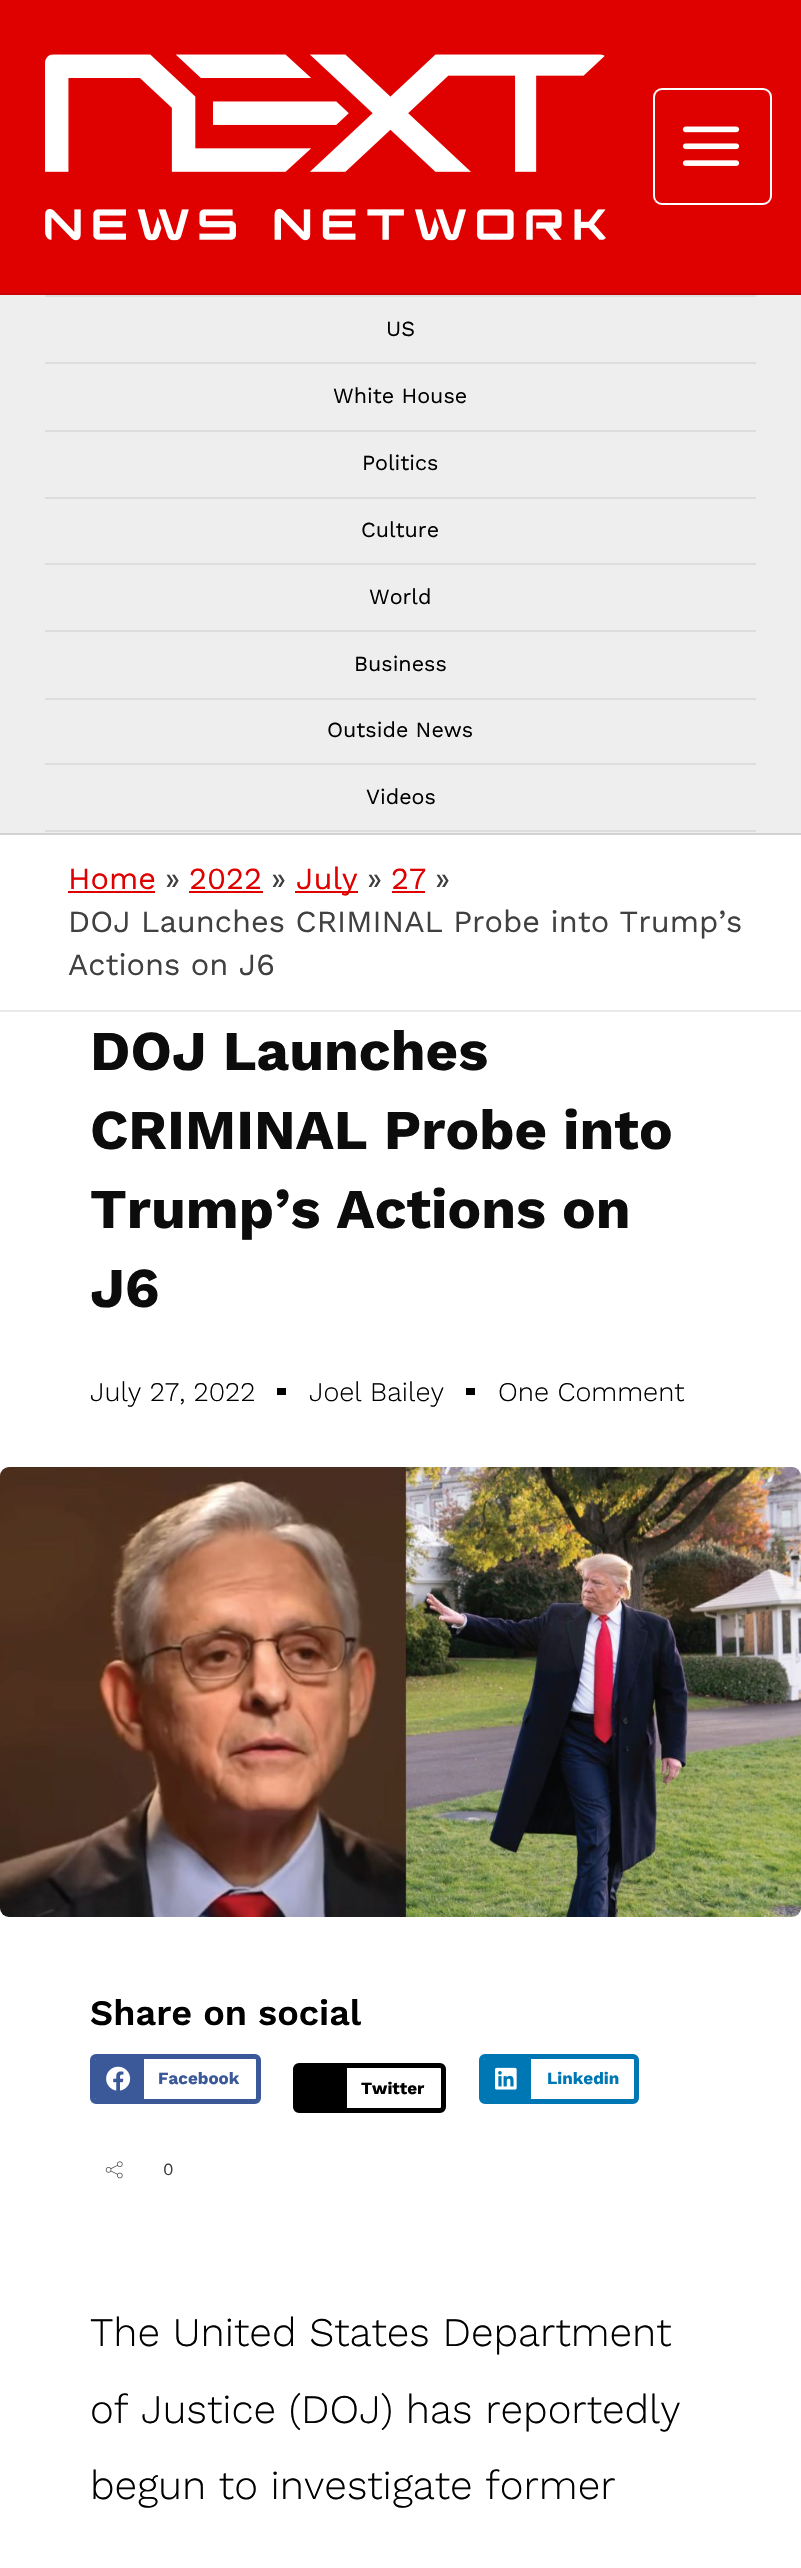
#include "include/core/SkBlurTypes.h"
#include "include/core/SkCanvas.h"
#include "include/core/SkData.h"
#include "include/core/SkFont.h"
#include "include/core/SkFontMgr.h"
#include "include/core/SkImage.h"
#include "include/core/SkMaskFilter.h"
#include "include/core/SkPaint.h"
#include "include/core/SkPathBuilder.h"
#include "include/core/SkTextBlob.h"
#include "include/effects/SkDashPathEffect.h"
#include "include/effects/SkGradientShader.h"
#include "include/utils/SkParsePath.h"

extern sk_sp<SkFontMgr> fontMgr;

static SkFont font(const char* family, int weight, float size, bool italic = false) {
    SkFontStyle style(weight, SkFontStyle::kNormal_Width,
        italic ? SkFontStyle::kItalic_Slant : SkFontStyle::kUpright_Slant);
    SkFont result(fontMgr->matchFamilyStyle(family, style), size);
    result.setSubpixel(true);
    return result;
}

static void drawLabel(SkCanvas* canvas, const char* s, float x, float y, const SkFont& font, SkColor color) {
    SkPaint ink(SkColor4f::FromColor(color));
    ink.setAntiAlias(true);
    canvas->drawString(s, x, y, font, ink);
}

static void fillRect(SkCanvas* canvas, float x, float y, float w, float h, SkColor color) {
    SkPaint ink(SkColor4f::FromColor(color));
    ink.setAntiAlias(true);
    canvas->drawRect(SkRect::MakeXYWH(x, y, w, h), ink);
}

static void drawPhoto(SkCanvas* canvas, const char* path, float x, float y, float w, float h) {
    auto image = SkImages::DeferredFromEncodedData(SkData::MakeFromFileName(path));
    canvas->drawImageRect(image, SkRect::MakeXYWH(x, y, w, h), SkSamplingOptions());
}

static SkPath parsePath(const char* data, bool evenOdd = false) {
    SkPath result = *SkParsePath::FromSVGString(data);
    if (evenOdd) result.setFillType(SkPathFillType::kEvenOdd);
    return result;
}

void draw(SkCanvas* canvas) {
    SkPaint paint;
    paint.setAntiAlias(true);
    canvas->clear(0xFFFFFFFF);
    fillRect(canvas, 0, 0, 801, 293, 0xFFDE0100);
    fillRect(canvas, 0, 293, 801, 2, 0xFFC80100);
    drawPhoto(canvas, "assets/img1.png", 45, 54, 561, 187);
    paint.setStroke(true);
    paint.setStrokeWidth(2);
    paint.setColor(0xFFFFFFFF);
    canvas->drawRoundRect(SkRect::MakeXYWH(654, 89, 117, 115), 8, 8, paint);
    drawPhoto(canvas, "assets/img2.png", 682, 126, 58, 40);
    fillRect(canvas, 0, 295, 801, 538, 0xFFEEEEEE);
    fillRect(canvas, 0, 833, 801, 2, 0xFFD3D3D3);
    fillRect(canvas, 45, 295, 711, 2, 0xFFDDDDDD);
    fillRect(canvas, 45, 362, 711, 2, 0xFFDDDDDD);
    SkFont font1 = font("Work Sans", 400, 21.5f);
    drawLabel(canvas, "US", 386, 336, font1, 0xFF000000);
    fillRect(canvas, 45, 430, 711, 2, 0xFFDDDDDD);
    drawLabel(canvas, "White House", 333, 403, font1, 0xFF000000);
    fillRect(canvas, 45, 497, 711, 2, 0xFFDDDDDD);
    drawLabel(canvas, "Politics", 362, 470, font1, 0xFF000000);
    fillRect(canvas, 45, 563, 711, 2, 0xFFDDDDDD);
    drawLabel(canvas, "Culture", 361, 537, font1, 0xFF000000);
    fillRect(canvas, 45, 630, 711, 2, 0xFFDDDDDD);
    drawLabel(canvas, "World", 369, 604, font1, 0xFF000000);
    fillRect(canvas, 45, 698, 711, 2, 0xFFDDDDDD);
    drawLabel(canvas, "Business", 354, 671, font1, 0xFF000000);
    fillRect(canvas, 45, 763, 711, 2, 0xFFDDDDDD);
    drawLabel(canvas, "Outside News", 327, 737, font1, 0xFF000000);
    fillRect(canvas, 45, 830, 711, 2, 0xFFDDDDDD);
    drawLabel(canvas, "Videos", 366, 804, font1, 0xFF000000);
    fillRect(canvas, 0, 1010, 801, 2, 0xFFEAEAEA);
    SkFont font2 = font("Work Sans", 400, 30.75f);
    drawLabel(canvas, "Home", 68, 889, font2, 0xFFDE0100);
    fillRect(canvas, 68, 891, 87, 2, 0xFFDE0100);
    drawLabel(canvas, "»", 165, 889, font2, 0xFF404040);
    drawLabel(canvas, "2022", 189, 889, font2, 0xFFDE0100);
    fillRect(canvas, 189, 891, 74, 2, 0xFFDE0100);
    drawLabel(canvas, "»", 271, 889, font2, 0xFF404040);
    fillRect(canvas, 295, 891, 63, 2, 0xFFDE0100);
    drawLabel(canvas, "July", 296, 889, font2, 0xFFDE0100);
    drawLabel(canvas, "»", 367, 889, font2, 0xFF404040);
    drawLabel(canvas, "27", 391, 889, font2, 0xFFDE0100);
    fillRect(canvas, 392, 891, 33, 2, 0xFFDE0100);
    drawLabel(canvas, "»", 435, 889, font2, 0xFF404040);
    drawLabel(canvas, "DOJ Launches CRIMINAL Probe into Trump’s", 68, 932, font2, 0xFF404040);
    drawLabel(canvas, "Actions on J6", 68, 975, font2, 0xFF404040);
    SkFont font3 = font("Work Sans", 700, 56.25f);
    drawLabel(canvas, "DOJ Launches", 90, 1070, font3, 0xFF0C0C0C);
    drawLabel(canvas, "CRIMINAL Probe into", 90, 1149, font3, 0xFF0C0C0C);
    drawLabel(canvas, "Trump’s Actions on", 90, 1228, font3, 0xFF0C0C0C);
    drawLabel(canvas, "J6", 90, 1307, font3, 0xFF0C0C0C);
    SkFont font4 = font("Work Sans", 300, 27);
    drawLabel(canvas, "July 27, 2022", 90, 1401, font4, 0xFF000000);
    fillRect(canvas, 277, 1388, 9, 7, 0xFF000000);
    drawLabel(canvas, "Joel Bailey", 309, 1401, font4, 0xFF000000);
    fillRect(canvas, 466, 1388, 9, 7, 0xFF000000);
    drawLabel(canvas, "One Comment", 498, 1401, font4, 0xFF000000);
    drawPhoto(canvas, "assets/img3.png", 0, 1467, 801, 450);
    SkFont font5 = font("Work Sans", 600, 36);
    drawLabel(canvas, "Share on social", 90, 2025, font5, 0xFF000000);
    paint.setStrokeWidth(5);
    paint.setColor(0xFF3B5998);
    canvas->drawRoundRect(SkRect::MakeXYWH(92.5f, 2056.5f, 166, 45), 3.5f, 3.5f, paint);
    paint.setStroke(false);
    canvas->drawPath(parsePath("M96 2059H144V2099H96C95.5 2099 95 2098.5 95 2098V2060C95 2059.5 95.5 2059 96 2059Z"), paint);
    drawPhoto(canvas, "assets/img4.png", 106, 2066, 25, 25);
    SkFont font6 = font("Work Sans", 700, 17);
    drawLabel(canvas, "Facebook", 158, 2084, font6, 0xFF3B5998);
    paint.setStroke(true);
    paint.setColor(0xFF0077B5);
    canvas->drawRoundRect(SkRect::MakeXYWH(481.5f, 2056.5f, 155, 45), 3.5f, 3.5f, paint);
    paint.setStroke(false);
    canvas->drawPath(parsePath("M485 2059H531V2099H485C484.5 2099 484 2098.5 484 2098V2060C484 2059.5 484.5 2059 485 2059Z"), paint);
    drawPhoto(canvas, "assets/img5.png", 495, 2067, 22, 23);
    drawLabel(canvas, "Linkedin", 547, 2084, font6, 0xFF0077B5);
    paint.setStroke(true);
    paint.setColor(0xFF000000);
    canvas->drawRoundRect(SkRect::MakeXYWH(295.5f, 2065.5f, 148, 45), 3.5f, 3.5f, paint);
    paint.setStroke(false);
    canvas->drawPath(parsePath("M298 2068H347V2108H298C297.5 2108 297 2107.5 297 2107V2069C297 2068.5 297.5 2068 298 2068Z"), paint);
    drawLabel(canvas, "Twitter", 361, 2094, font6, 0xFF000000);
    drawPhoto(canvas, "assets/img6.png", 105, 2161, 18, 18);
    SkFont font7 = font("Work Sans", 400, 17);
    drawLabel(canvas, "0", 163, 2175, font7, 0xFF404040);
    SkFont font8 = font("Work Sans", 300, 40.5f);
    drawLabel(canvas, "The United States Department", 90, 2346, font8, 0xFF000000);
    drawLabel(canvas, "of Justice (DOJ) has reportedly", 90, 2423, font8, 0xFF000000);
    drawLabel(canvas, "begun to investigate former", 90, 2499, font8, 0xFF000000);
}
